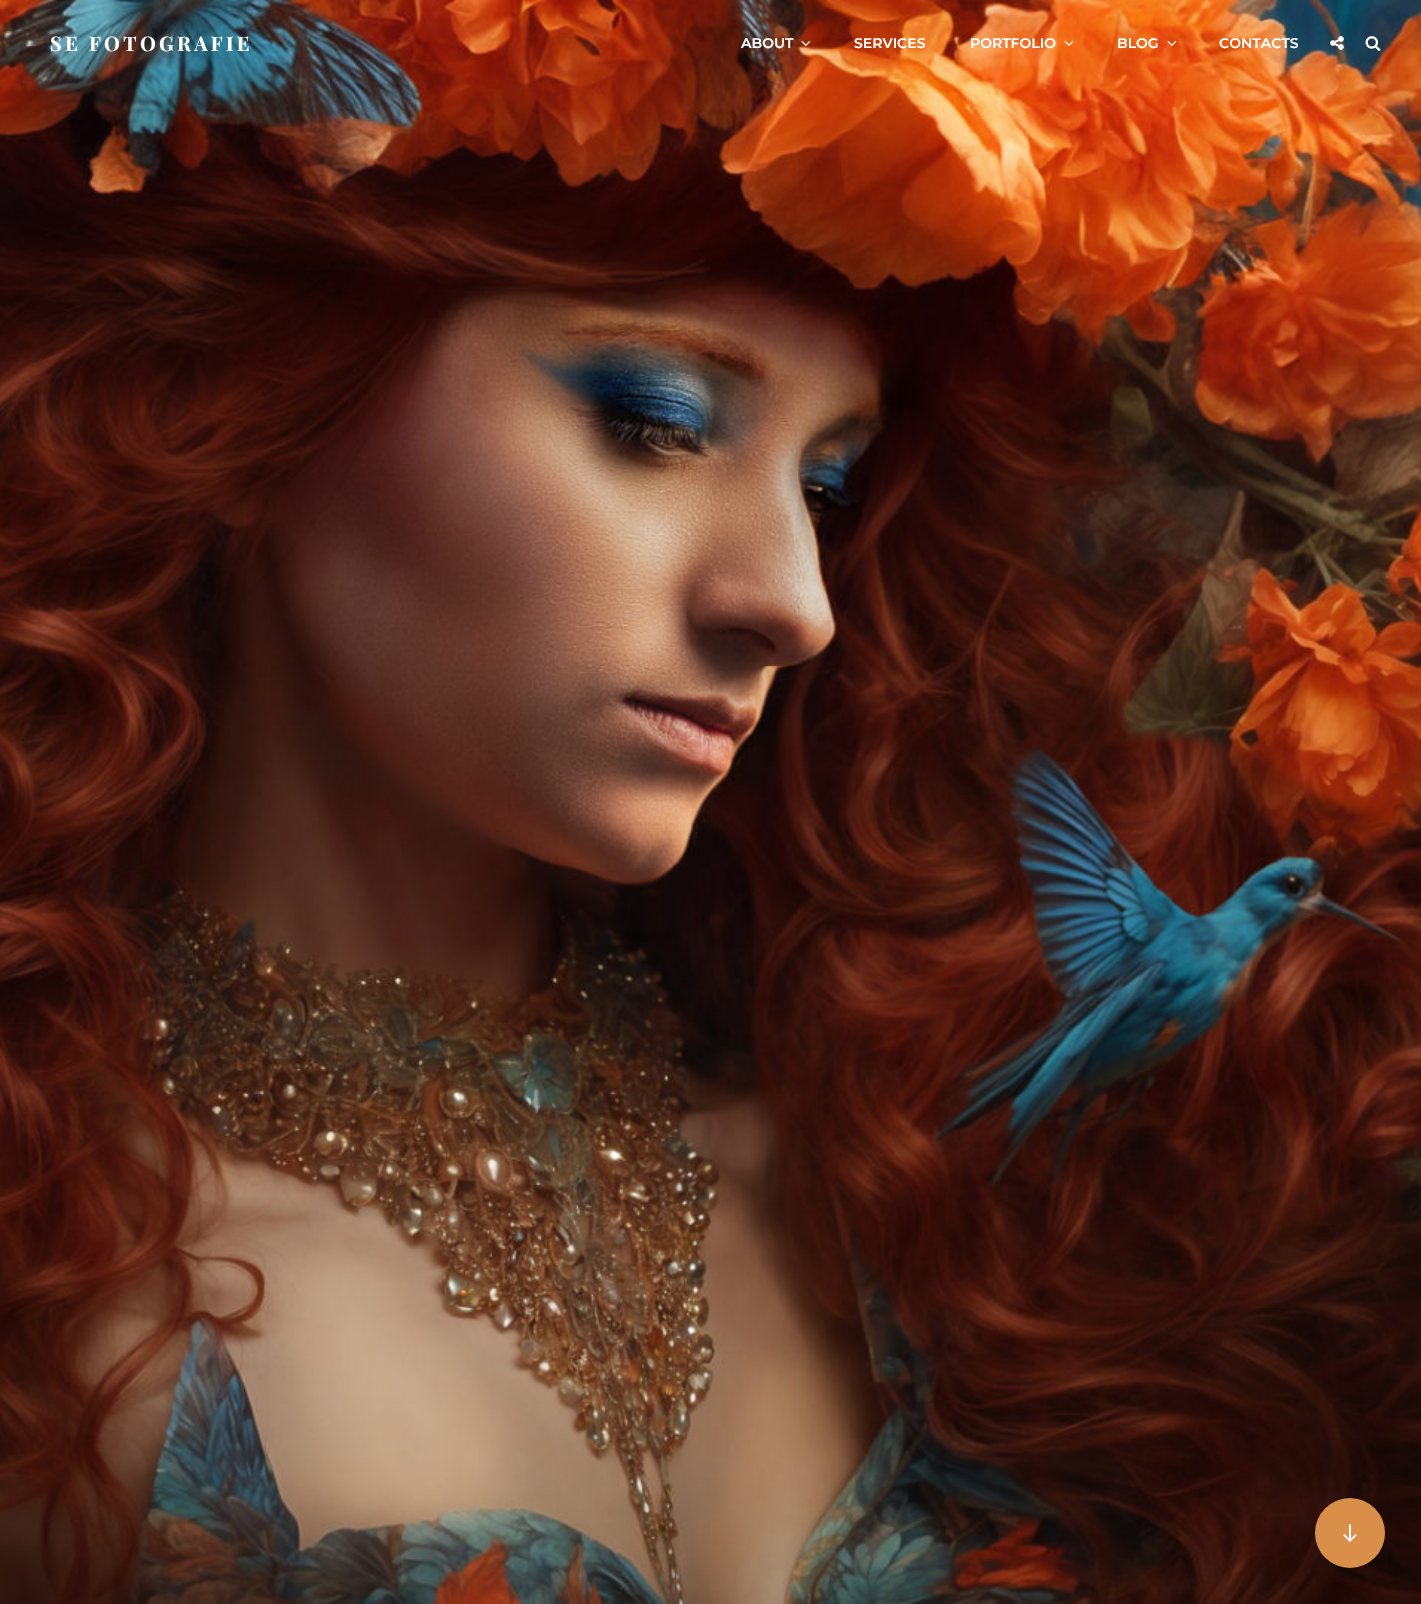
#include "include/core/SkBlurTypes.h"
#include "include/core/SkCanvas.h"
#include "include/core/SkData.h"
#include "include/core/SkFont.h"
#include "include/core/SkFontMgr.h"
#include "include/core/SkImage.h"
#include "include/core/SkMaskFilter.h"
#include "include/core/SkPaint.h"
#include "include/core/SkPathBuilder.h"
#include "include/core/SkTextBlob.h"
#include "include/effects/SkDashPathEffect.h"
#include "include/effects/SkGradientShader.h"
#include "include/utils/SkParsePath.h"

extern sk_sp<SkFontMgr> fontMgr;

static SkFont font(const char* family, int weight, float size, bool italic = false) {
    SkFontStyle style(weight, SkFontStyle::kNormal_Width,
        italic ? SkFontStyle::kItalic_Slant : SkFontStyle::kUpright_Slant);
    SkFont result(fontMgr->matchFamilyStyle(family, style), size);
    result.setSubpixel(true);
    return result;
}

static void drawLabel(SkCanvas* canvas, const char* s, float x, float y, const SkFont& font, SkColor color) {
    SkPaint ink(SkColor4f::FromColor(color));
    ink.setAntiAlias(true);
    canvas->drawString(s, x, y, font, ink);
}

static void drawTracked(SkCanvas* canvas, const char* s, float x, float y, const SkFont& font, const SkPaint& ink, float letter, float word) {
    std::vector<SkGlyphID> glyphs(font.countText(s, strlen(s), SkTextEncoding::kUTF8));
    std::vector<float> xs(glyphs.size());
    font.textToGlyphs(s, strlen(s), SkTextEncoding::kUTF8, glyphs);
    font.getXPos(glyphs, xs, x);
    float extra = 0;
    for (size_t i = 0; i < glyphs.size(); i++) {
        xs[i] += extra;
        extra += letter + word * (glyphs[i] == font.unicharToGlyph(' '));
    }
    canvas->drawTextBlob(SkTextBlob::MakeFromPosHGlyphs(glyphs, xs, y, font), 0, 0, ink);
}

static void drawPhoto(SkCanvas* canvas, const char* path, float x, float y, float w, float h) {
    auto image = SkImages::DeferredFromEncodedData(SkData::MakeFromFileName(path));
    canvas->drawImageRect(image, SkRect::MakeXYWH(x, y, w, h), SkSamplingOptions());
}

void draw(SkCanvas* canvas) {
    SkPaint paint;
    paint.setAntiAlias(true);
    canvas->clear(0xFFFFFFFF);
    drawPhoto(canvas, "assets/img1.png", 0, 0, 1421, 1604);
    paint.setColor(0xFFD98E4A);
    canvas->drawCircle(1350, 1533, 35, paint);
    drawPhoto(canvas, "assets/img2.png", 1343, 1524, 14, 18);
    SkFont font1 = font("Playfair Display", 700, 20);
    paint.setColor(0xFFFFFFFF);
    drawTracked(canvas, "SE FOTOGRAFIE", 50, 51, font1, paint, 3.3f, 0);
    SkFont font2 = font("Montserrat", 600, 14);
    drawLabel(canvas, "ABOUT", 741, 48, font2, 0xFFFFFFFF);
    drawPhoto(canvas, "assets/img3.png", 801, 40, 10, 6);
    drawLabel(canvas, "SERVICES", 854, 48, font2, 0xFFFFFFFF);
    drawLabel(canvas, "PORTFOLIO", 970, 48, font2, 0xFFFFFFFF);
    drawPhoto(canvas, "assets/img4.png", 1064, 40, 10, 6);
    drawLabel(canvas, "BLOG", 1117, 48, font2, 0xFFFFFFFF);
    drawPhoto(canvas, "assets/img5.png", 1167, 40, 10, 6);
    drawLabel(canvas, "CONTACTS", 1219, 48, font2, 0xFFFFFFFF);
    drawPhoto(canvas, "assets/img6.png", 1330, 36, 14, 14);
    drawPhoto(canvas, "assets/img7.png", 1365, 36, 16, 15);
}
